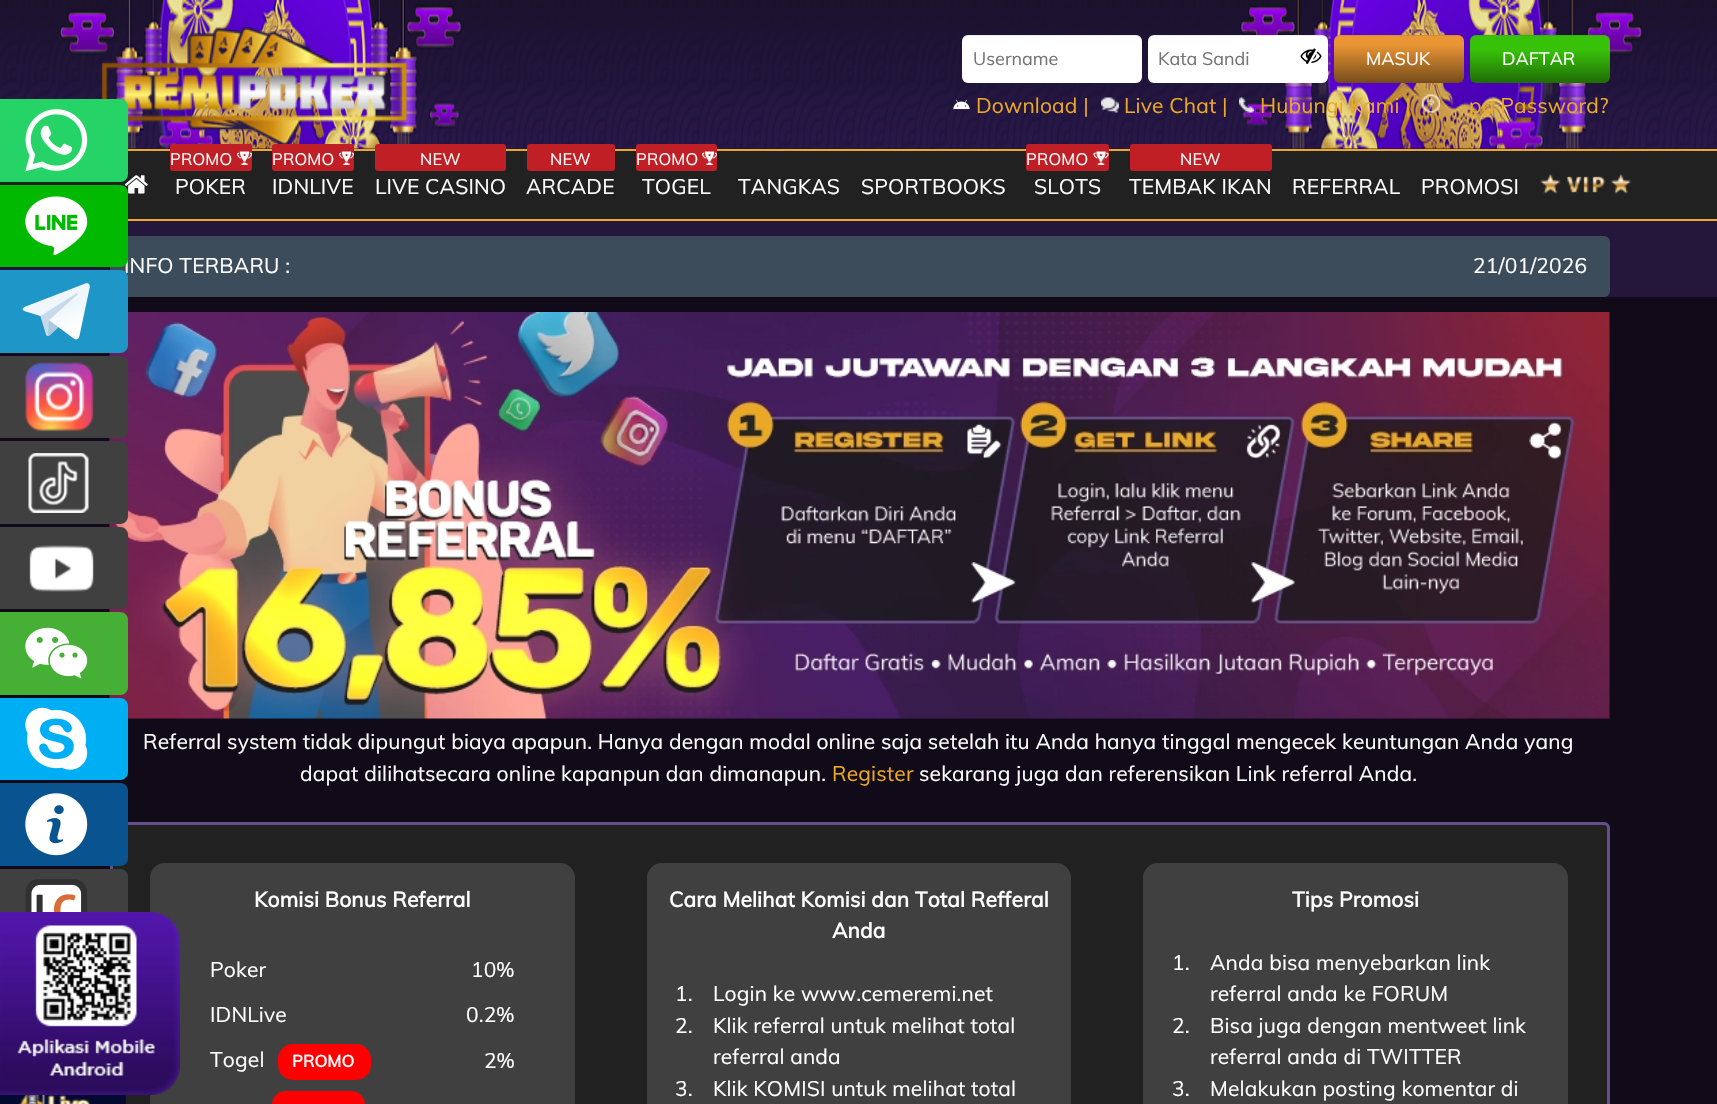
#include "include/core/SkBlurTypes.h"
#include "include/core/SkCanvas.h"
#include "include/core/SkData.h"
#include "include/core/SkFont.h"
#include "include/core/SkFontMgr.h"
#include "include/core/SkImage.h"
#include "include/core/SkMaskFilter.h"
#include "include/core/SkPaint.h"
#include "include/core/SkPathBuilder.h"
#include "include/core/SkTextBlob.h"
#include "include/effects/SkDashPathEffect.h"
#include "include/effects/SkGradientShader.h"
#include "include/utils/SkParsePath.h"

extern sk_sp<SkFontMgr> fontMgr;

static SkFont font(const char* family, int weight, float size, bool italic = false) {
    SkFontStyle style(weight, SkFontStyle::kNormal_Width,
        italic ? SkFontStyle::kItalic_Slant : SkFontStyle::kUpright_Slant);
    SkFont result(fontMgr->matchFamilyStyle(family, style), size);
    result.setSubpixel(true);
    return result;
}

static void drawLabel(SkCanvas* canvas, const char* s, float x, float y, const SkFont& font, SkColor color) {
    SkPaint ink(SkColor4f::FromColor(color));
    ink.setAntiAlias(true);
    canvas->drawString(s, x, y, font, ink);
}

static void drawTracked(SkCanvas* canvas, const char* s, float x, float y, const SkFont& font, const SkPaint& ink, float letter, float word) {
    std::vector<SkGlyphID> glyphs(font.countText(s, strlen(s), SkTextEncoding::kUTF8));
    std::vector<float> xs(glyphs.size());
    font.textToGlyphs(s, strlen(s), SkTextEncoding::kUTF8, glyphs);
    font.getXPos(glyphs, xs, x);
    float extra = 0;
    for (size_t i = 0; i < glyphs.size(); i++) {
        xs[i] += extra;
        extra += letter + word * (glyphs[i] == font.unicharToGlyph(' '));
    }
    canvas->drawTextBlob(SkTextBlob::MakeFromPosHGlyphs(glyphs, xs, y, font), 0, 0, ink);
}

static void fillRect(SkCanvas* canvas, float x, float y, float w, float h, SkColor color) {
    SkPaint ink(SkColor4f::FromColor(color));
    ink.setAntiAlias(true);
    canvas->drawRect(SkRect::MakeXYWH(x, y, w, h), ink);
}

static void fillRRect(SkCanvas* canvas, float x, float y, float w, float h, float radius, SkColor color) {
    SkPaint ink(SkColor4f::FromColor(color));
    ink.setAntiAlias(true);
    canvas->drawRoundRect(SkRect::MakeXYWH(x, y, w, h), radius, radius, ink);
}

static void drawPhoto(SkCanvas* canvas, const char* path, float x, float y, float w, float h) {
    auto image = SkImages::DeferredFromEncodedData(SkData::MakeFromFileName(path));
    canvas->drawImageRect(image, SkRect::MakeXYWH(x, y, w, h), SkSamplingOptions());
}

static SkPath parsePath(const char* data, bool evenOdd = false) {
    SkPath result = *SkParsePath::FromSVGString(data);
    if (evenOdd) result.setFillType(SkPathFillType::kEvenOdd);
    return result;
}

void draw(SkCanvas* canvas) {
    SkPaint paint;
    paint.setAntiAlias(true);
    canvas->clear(0xFF110B19);
    fillRect(canvas, 0, 148, 1717, 149, 0xFF25163B);
    drawPhoto(canvas, "assets/img12.png", 0, 0, 1717, 149);
    drawPhoto(canvas, "assets/img13.png", 101, 27, 306, 117);
    fillRect(canvas, 0, 151, 1717, 68, 0xFF212121);
    drawPhoto(canvas, "assets/img19.png", 124, 175, 24, 19);
    paint.setColor(0xFF25D366);
    canvas->drawPath(parsePath("M0 99H120C124.5 99 128 102.5 128 107V174C128 178.5 124.5 182 120 182H0Z"), paint);
    drawPhoto(canvas, "assets/img1.png", 25, 109, 63, 63);
    fillRRect(canvas, 110, 236, 1500, 61, 6, 0xFF3D4C5A);
    SkFont font1 = font("Muli", 400, 21);
    paint.setColor(0xFFFFFFFF);
    drawTracked(canvas, "INFO TERBARU :", 124, 273, font1, paint, 0.15f, 0);
    paint.setColor(0xFF00B900);
    canvas->drawPath(parsePath("M0 185H120C124.5 185 128 188.5 128 193V259C128 263.5 124.5 267 120 267H0Z"), paint);
    drawPhoto(canvas, "assets/img2.png", 25, 196, 63, 59);
    drawPhoto(canvas, "assets/img24.png", 109, 312, 1501, 407);
    paint.setColor(0xFF1E96C8);
    canvas->drawPath(parsePath("M0 270H120C124.5 270 128 273.5 128 278V345C128 349.5 124.5 353 120 353H0Z"), paint);
    drawPhoto(canvas, "assets/img3.png", 22, 283, 68, 57);
    paint.setColor(0xFF404040);
    canvas->drawPath(parsePath("M0 356H120C124.5 356 128 359.5 128 364V430C128 434.5 124.5 438 120 438H0Z"), paint);
    drawPhoto(canvas, "assets/img4.png", 25, 362, 69, 70);
    canvas->drawPath(parsePath("M0 441H120C124.5 441 128 444.5 128 449V516C128 520.5 124.5 524 120 524H0Z"), paint);
    drawPhoto(canvas, "assets/img5.png", 28, 453, 61, 60);
    canvas->drawPath(parsePath("M0 527H120C124.5 527 128 530.5 128 535V601C128 605.5 124.5 609 120 609H0Z"), paint);
    drawPhoto(canvas, "assets/img6.png", 29, 545, 65, 47);
    paint.setColor(0xFF45B035);
    canvas->drawPath(parsePath("M0 612H120C124.5 612 128 615.5 128 620V687C128 691.5 124.5 695 120 695H0Z"), paint);
    drawPhoto(canvas, "assets/img7.png", 25, 627, 63, 52);
    paint.setColor(0xFF00AEF3);
    canvas->drawPath(parsePath("M0 698H120C124.5 698 128 701.5 128 706V772C128 776.5 124.5 780 120 780H0Z"), paint);
    drawPhoto(canvas, "assets/img8.png", 25, 707, 63, 63);
    paint.setColor(0xFF212121);
    canvas->drawRoundRect(SkRect::MakeXYWH(111.5f, 823.5f, 1497, 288), 4.5f, 4.5f, paint);
    paint.setStroke(true);
    paint.setStrokeWidth(3);
    paint.setColor(0xFF634F8B);
    canvas->drawRoundRect(SkRect::MakeXYWH(111.5f, 823.5f, 1497, 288), 4.5f, 4.5f, paint);
    paint.setStroke(false);
    paint.setColor(0xFF095490);
    canvas->drawPath(parsePath("M0 783H120C124.5 783 128 786.5 128 791V858C128 862.5 124.5 866 120 866H0Z"), paint);
    drawPhoto(canvas, "assets/img9.png", 25, 793, 63, 63);
    paint.setColor(0xFF404040);
    canvas->drawPath(parsePath("M0 869H120C124.5 869 128 872.5 128 877V943C128 947.5 124.5 951 120 951H0Z"), paint);
    drawPhoto(canvas, "assets/img10.png", 25, 879, 62, 33);
    drawPhoto(canvas, "assets/img11.png", 0, 1095, 126, 9);
    fillRRect(canvas, 962, 35, 180, 48, 6, 0xFFFFFFFF);
    paint.setColor(0x12000000);
    canvas->drawPath(parsePath("M968 36H1136C1139 36 1142 39 1142 42V41C1142 38 1139 35 1136 35H968C965 35 962 38 962 41V42C962 39 964 36 968 36Z"), paint);
    SkFont font2 = font("Muli", 400, 18);
    drawLabel(canvas, "Username", 973, 65, font2, 0xFF757575);
    fillRRect(canvas, 1148, 35, 180, 48, 6, 0xFFFFFFFF);
    canvas->drawPath(parsePath("M1154 36H1322C1325 36 1328 39 1328 42V41C1328 38 1325 35 1322 35H1154C1151 35 1148 38 1148 41V42C1148 39 1150 36 1154 36Z"), paint);
    drawLabel(canvas, "Kata Sandi", 1158, 65, font2, 0xFF757575);
    drawPhoto(canvas, "assets/img14.png", 1300, 48, 22, 17);
    {
        const SkColor colors[] = {0xFFEB9635, 0xFF754B1A};
        const float stops[] = {0.21f, 1};
        const SkPoint ends[] = {{1399, 34}, {1399, 83}};
        paint.setShader(SkGradientShader::MakeLinear(ends, colors, stops, 2, SkTileMode::kClamp));
        paint.setAlpha(255);
    }
    canvas->drawRoundRect(SkRect::MakeXYWH(1334, 35, 130, 48), 6, 6, paint);
    paint.setShader(nullptr);
    paint.setColor(0x12000000);
    canvas->drawPath(parsePath("M1340 36H1458C1461 36 1464 39 1464 42C1464 30 1444 35 1438 35H1360C1354 35 1334 30 1334 42C1334 39 1336 36 1340 36Z"), paint);
    drawLabel(canvas, "MASUK", 1366, 65, font2, 0xFFFFFFFF);
    {
        const SkColor colors[] = {0xFF38C109, 0xFF1F6C05};
        const float stops[] = {0.33f, 1};
        const SkPoint ends[] = {{1540, 34}, {1540, 83}};
        paint.setShader(SkGradientShader::MakeLinear(ends, colors, stops, 2, SkTileMode::kClamp));
        paint.setAlpha(255);
    }
    canvas->drawRoundRect(SkRect::MakeXYWH(1470, 35, 140, 48), 6, 6, paint);
    paint.setShader(nullptr);
    paint.setColor(0x12000000);
    canvas->drawPath(parsePath("M1476 36H1604C1607 36 1610 39 1610 42C1610 30 1587 35 1583 35H1497C1493 35 1470 30 1470 42C1470 39 1473 36 1476 36Z"), paint);
    drawLabel(canvas, "DAFTAR", 1502, 65, font2, 0xFFFFFFFF);
    drawPhoto(canvas, "assets/img15.png", 953, 99, 17, 11);
    paint.setColor(0xFFEBA925);
    drawTracked(canvas, "Download |", 976, 113, font1, paint, 0.15f, 0);
    drawPhoto(canvas, "assets/img16.png", 1101, 97, 18, 16);
    drawTracked(canvas, "Live Chat |", 1124, 113, font1, paint, 0.15f, 0);
    drawPhoto(canvas, "assets/img17.png", 1239, 97, 15, 16);
    drawTracked(canvas, "Hubungi Kami |", 1260, 113, font1, paint, 0.15f, 0);
    drawPhoto(canvas, "assets/img18.png", 1422, 94, 18, 19);
    drawTracked(canvas, "pa Password?", 1469, 113, font1, paint, 0.15f, 0);
    fillRect(canvas, 128, 149, 1589, 2, 0xFFEBA925);
    fillRect(canvas, 128, 219, 1589, 2, 0xFFEBA925);
    fillRRect(canvas, 170, 144, 82, 27, 3, 0xFFC01F25);
    SkFont font3 = font("Muli", 400, 16.5f);
    paint.setColor(0xFFFFFFFF);
    drawTracked(canvas, "PROMO", 170, 165, font3, paint, 0.15f, 0);
    drawPhoto(canvas, "assets/img20.png", 237, 151, 15, 14);
    drawTracked(canvas, "POKER", 175, 194, font1, paint, 0.15f, 0);
    fillRRect(canvas, 272, 144, 82, 27, 3, 0xFFC01F25);
    drawTracked(canvas, "PROMO", 272, 165, font3, paint, 0.15f, 0);
    drawPhoto(canvas, "assets/img21.png", 339, 151, 15, 14);
    drawTracked(canvas, "IDNLIVE", 272, 194, font1, paint, 0.15f, 0);
    fillRRect(canvas, 375, 144, 131, 27, 3, 0xFFC01F25);
    drawTracked(canvas, "NEW", 420, 165, font3, paint, 0.15f, 0);
    drawTracked(canvas, "LIVE CASINO", 375, 194, font1, paint, 0.15f, 0);
    fillRRect(canvas, 527, 144, 88, 27, 3, 0xFFC01F25);
    drawTracked(canvas, "NEW", 550, 165, font3, paint, 0.15f, 0);
    drawTracked(canvas, "ARCADE", 526, 194, font1, paint, 0.15f, 0);
    fillRRect(canvas, 636, 144, 81, 27, 3, 0xFFC01F25);
    drawTracked(canvas, "PROMO", 636, 165, font3, paint, 0.15f, 0);
    drawPhoto(canvas, "assets/img21.png", 702, 151, 15, 14);
    drawTracked(canvas, "TOGEL", 642, 194, font1, paint, 0.15f, 0);
    drawTracked(canvas, "TANGKAS", 738, 194, font1, paint, 0.15f, 0);
    drawTracked(canvas, "SPORTBOOKS", 861, 194, font1, paint, 0.15f, 0);
    fillRRect(canvas, 1026, 144, 83, 27, 3, 0xFFC01F25);
    drawTracked(canvas, "PROMO", 1026, 165, font3, paint, 0.15f, 0);
    drawPhoto(canvas, "assets/img22.png", 1093, 151, 16, 14);
    drawTracked(canvas, "SLOTS", 1034, 194, font1, paint, 0.15f, 0);
    fillRRect(canvas, 1130, 144, 142, 27, 3, 0xFFC01F25);
    drawTracked(canvas, "NEW", 1180, 165, font3, paint, 0.15f, 0);
    drawTracked(canvas, "TEMBAK IKAN", 1129, 194, font1, paint, 0.15f, 0);
    drawTracked(canvas, "REFERRAL", 1292, 194, font1, paint, 0.15f, 0);
    drawTracked(canvas, "PROMOSI", 1421, 194, font1, paint, 0.15f, 0);
    drawPhoto(canvas, "assets/img23.png", 1540, 174, 91, 20);
    drawTracked(canvas, "21/01/2026", 1473, 273, font1, paint, 0.15f, 0);
    drawTracked(canvas, "Referral system tidak dipungut biaya apapun. Hanya dengan modal online saja setelah itu Anda hanya tinggal mengecek keuntungan Anda yang", 143, 749, font1, paint, 0.15f, 0);
    drawTracked(canvas, "dapat dilihatsecara online kapanpun dan dimanapun.", 300, 781, font1, paint, 0.15f, 0);
    paint.setColor(0xFFEBA925);
    drawTracked(canvas, "Register", 832, 781, font1, paint, 0.15f, 0);
    paint.setColor(0xFFFFFFFF);
    drawTracked(canvas, "sekarang juga dan referensikan Link referral Anda.", 919, 781, font1, paint, 0.15f, 0);
    fillRRect(canvas, 150, 863, 425, 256, 15, 0xFF404040);
    SkFont font4 = font("Muli", 700, 21);
    drawTracked(canvas, "Komisi Bonus Referral", 254, 907, font4, paint, 0.15f, 0);
    drawTracked(canvas, "Poker", 210, 977, font1, paint, 0.15f, 0);
    drawTracked(canvas, "10%", 471, 977, font1, paint, 0.15f, 0);
    drawTracked(canvas, "IDNLive", 210, 1022, font1, paint, 0.15f, 0);
    drawTracked(canvas, "0.2%", 466, 1022, font1, paint, 0.15f, 0);
    drawTracked(canvas, "Togel", 210, 1067, font1, paint, 0.15f, 0);
    fillRRect(canvas, 278, 1044, 93, 36, 15, 0xFFFF0000);
    SkFont font5 = font("Muli", 700, 16.5f);
    drawTracked(canvas, "PROMO", 292, 1067, font5, paint, 0.15f, 0);
    drawTracked(canvas, "2%", 484, 1068, font1, paint, 0.15f, 0);
    fillRRect(canvas, 272, 1091, 93, 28, 15, 0xFFFF0000);
    fillRRect(canvas, 647, 863, 424, 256, 15, 0xFF404040);
    drawTracked(canvas, "Cara Melihat Komisi dan Total Refferal", 669, 907, font4, paint, 0.15f, 0);
    drawTracked(canvas, "Anda", 832, 938, font4, paint, 0.15f, 0);
    drawTracked(canvas, "1.", 675, 1001, font1, paint, 0.15f, 0);
    drawTracked(canvas, "Login ke www.cemeremi.net", 713, 1001, font1, paint, 0.15f, 0);
    drawTracked(canvas, "2.", 675, 1033, font1, paint, 0.15f, 0);
    drawTracked(canvas, "Klik referral untuk melihat total", 713, 1033, font1, paint, 0.15f, 0);
    drawTracked(canvas, "referral anda", 713, 1064, font1, paint, 0.15f, 0);
    drawTracked(canvas, "3.", 675, 1096, font1, paint, 0.15f, 0);
    drawTracked(canvas, "Klik KOMISI untuk melihat total", 713, 1096, font1, paint, 0.15f, 0);
    fillRRect(canvas, 1143, 863, 425, 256, 15, 0xFF404040);
    drawTracked(canvas, "Tips Promosi", 1292, 907, font4, paint, 0.15f, 0);
    drawTracked(canvas, "1.", 1172, 970, font1, paint, 0.15f, 0);
    drawTracked(canvas, "Anda bisa menyebarkan link", 1210, 970, font1, paint, 0.15f, 0);
    drawTracked(canvas, "referral anda ke FORUM", 1210, 1001, font1, paint, 0.15f, 0);
    drawTracked(canvas, "2.", 1172, 1033, font1, paint, 0.15f, 0);
    drawTracked(canvas, "Bisa juga dengan mentweet link", 1210, 1033, font1, paint, 0.15f, 0);
    drawTracked(canvas, "referral anda di TWITTER", 1210, 1064, font1, paint, 0.15f, 0);
    drawTracked(canvas, "3.", 1172, 1096, font1, paint, 0.15f, 0);
    drawTracked(canvas, "Melakukan posting komentar di", 1210, 1096, font1, paint, 0.15f, 0);
    drawPhoto(canvas, "assets/img25.png", 0, 912, 180, 183);
}
